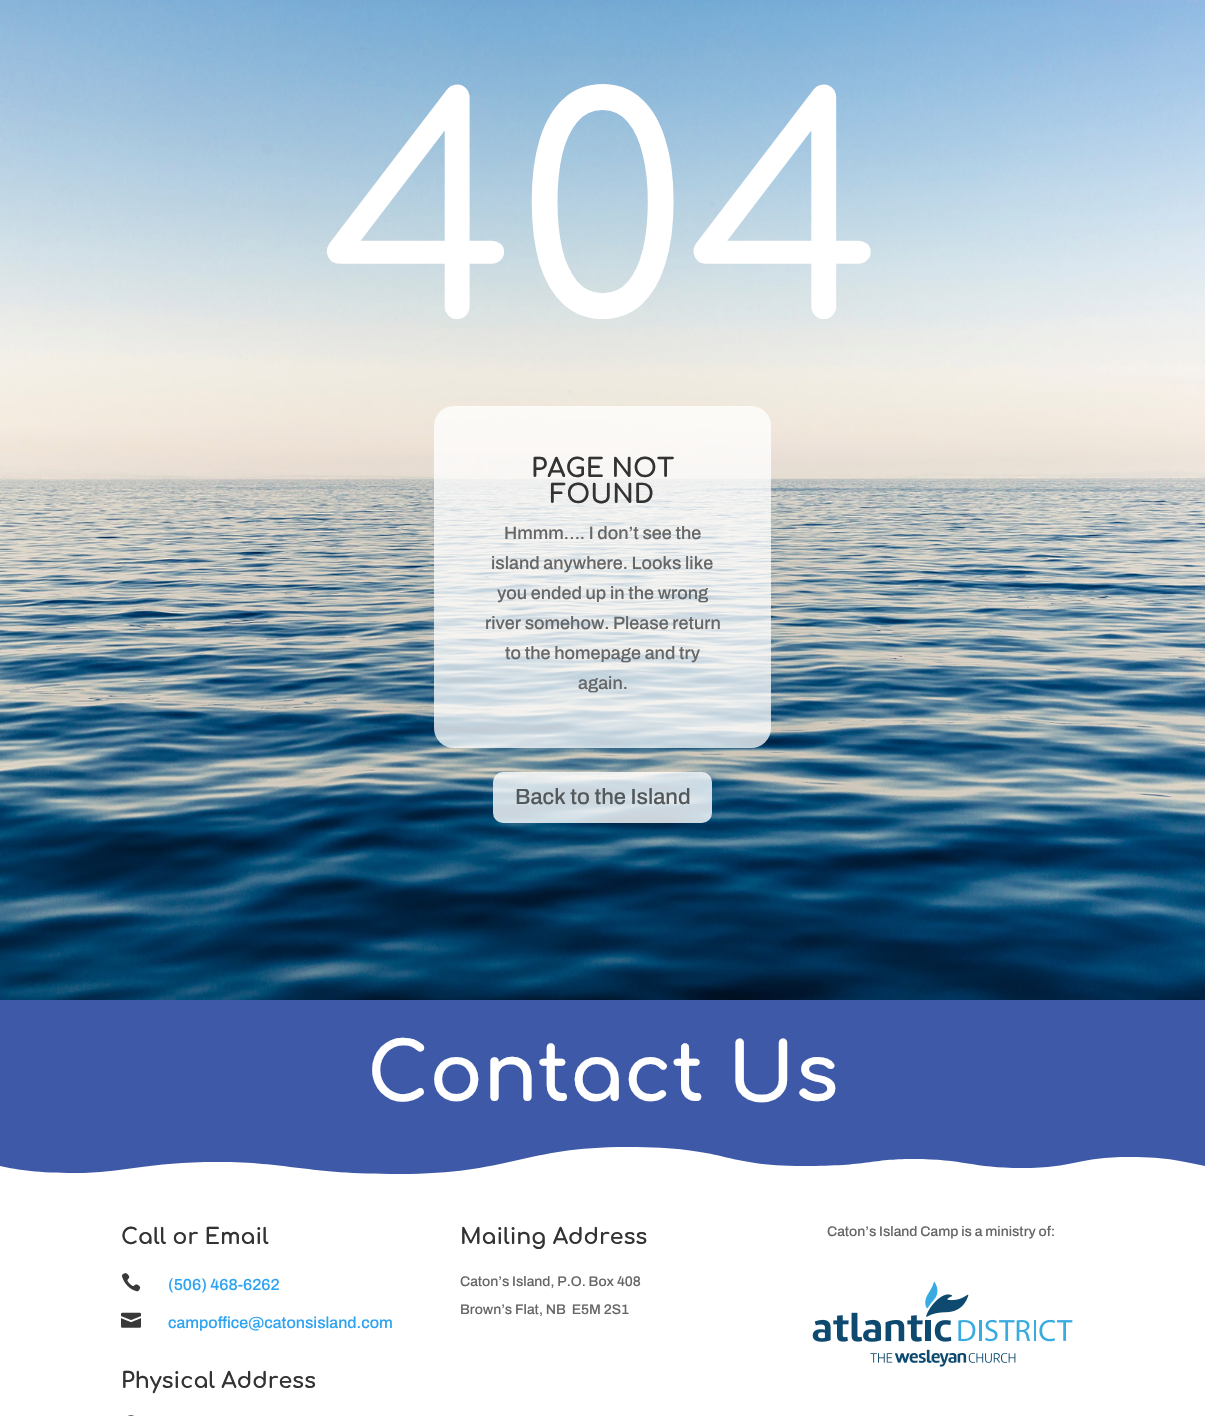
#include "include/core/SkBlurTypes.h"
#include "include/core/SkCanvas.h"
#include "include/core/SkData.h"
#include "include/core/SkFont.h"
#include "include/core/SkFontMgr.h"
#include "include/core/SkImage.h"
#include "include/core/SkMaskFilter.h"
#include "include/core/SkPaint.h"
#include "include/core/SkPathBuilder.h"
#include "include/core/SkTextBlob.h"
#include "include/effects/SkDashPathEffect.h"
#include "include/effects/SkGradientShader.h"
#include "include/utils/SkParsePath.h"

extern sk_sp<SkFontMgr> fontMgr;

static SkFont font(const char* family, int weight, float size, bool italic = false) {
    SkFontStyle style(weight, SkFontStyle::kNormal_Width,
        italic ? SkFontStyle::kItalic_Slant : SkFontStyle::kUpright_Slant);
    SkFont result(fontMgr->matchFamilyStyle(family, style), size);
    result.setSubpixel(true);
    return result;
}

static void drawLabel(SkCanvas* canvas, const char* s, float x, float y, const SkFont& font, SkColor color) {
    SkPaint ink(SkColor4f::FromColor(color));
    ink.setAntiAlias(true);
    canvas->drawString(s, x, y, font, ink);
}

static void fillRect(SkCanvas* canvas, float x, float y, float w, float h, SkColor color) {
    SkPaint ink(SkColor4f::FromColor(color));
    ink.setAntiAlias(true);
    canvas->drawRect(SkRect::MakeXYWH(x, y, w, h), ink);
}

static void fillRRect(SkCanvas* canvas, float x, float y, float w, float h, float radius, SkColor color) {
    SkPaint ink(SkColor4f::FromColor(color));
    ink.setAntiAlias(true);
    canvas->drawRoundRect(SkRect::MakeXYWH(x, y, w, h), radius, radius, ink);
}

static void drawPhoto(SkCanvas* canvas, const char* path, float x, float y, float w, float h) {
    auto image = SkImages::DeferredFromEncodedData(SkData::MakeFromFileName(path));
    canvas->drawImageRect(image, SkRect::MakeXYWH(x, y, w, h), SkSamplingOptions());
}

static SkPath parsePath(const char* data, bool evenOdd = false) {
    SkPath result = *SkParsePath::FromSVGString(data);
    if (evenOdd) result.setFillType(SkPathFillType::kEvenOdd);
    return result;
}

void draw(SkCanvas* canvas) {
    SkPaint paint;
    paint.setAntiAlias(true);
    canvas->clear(0xFFFFFFFF);
    drawPhoto(canvas, "assets/img1.png", 0, 0, 1205, 1000);
    SkFont font1 = font("Comfortaa", 500, 300);
    drawLabel(canvas, "404", 322, 319, font1, 0xFFFFFFFF);
    fillRRect(canvas, 434, 406, 337, 342, 20, 0xC2FFFFFF);
    SkFont font2 = font("Comfortaa", 700, 26);
    drawLabel(canvas, "PAGE NOT", 531, 477, font2, 0xFF333333);
    drawLabel(canvas, "FOUND", 550, 503, font2, 0xFF333333);
    SkFont font3 = font("Archivo", 500, 18);
    drawLabel(canvas, "Hmmm…. I don’t see the", 504, 539, font3, 0xFF666666);
    drawLabel(canvas, "island anywhere. Looks like", 491, 569, font3, 0xFF666666);
    drawLabel(canvas, "you ended up in the wrong", 497, 599, font3, 0xFF666666);
    drawLabel(canvas, "river somehow. Please return", 485, 629, font3, 0xFF666666);
    drawLabel(canvas, "to the homepage and try", 505, 659, font3, 0xFF666666);
    drawLabel(canvas, "again.", 578, 689, font3, 0xFF666666);
    fillRRect(canvas, 493, 772, 219, 51, 10, 0xCCFFFFFF);
    SkFont font4 = font("Archivo", 500, 22);
    drawLabel(canvas, "Back to the Island", 515, 804, font4, 0xFF53585B);
    fillRect(canvas, 0, 1000, 1205, 144, 0xFF3D59A8);
    SkFont font5 = font("Comfortaa", 700, 80);
    drawLabel(canvas, "Contact Us", 367, 1101, font5, 0xFFFFFFFF);
    paint.setColor(0xFF3D59A8);
    canvas->drawPath(parsePath("M0 1144V1166C19 1170 38 1173 75 1173C124 1173 146 1162 218 1162C288 1162 304 1174 399 1174C512 1174 522 1147 627 1147C730 1147 720 1166 804 1166C870 1166 870 1159 913 1159C965 1159 971 1168 1022 1168C1076 1168 1076 1157 1130 1157C1167 1157 1186 1162 1205 1166V1144Z"), paint);
    SkFont font6 = font("Comfortaa", 700, 22);
    drawLabel(canvas, "Call or Email", 121, 1244, font6, 0xFF333333);
    drawPhoto(canvas, "assets/img2.png", 121, 1273, 20, 19);
    SkFont font7 = font("Archivo", 500, 16);
    drawLabel(canvas, "(506) 468-6262", 168, 1290, font7, 0xFF2EA3F2);
    drawPhoto(canvas, "assets/img3.png", 121, 1312, 20, 16);
    drawLabel(canvas, "campoffice@catonsisland.com", 168, 1328, font7, 0xFF2EA3F2);
    drawLabel(canvas, "Physical Address", 121, 1388, font6, 0xFF333333);
    drawPhoto(canvas, "assets/img4.png", 128, 1415, 6, 1);
    drawLabel(canvas, "Mailing Address", 460, 1244, font6, 0xFF333333);
    SkFont font8 = font("Archivo", 500, 14);
    drawLabel(canvas, "Caton’s Island, P.O. Box 408", 460, 1286, font8, 0xFF666666);
    drawLabel(canvas, "Brown’s Flat, NB  E5M 2S1", 460, 1314, font8, 0xFF666666);
    drawLabel(canvas, "Caton’s Island Camp is a ministry of:", 827, 1236, font8, 0xFF666666);
    drawPhoto(canvas, "assets/img5.png", 812, 1281, 261, 86);
}
